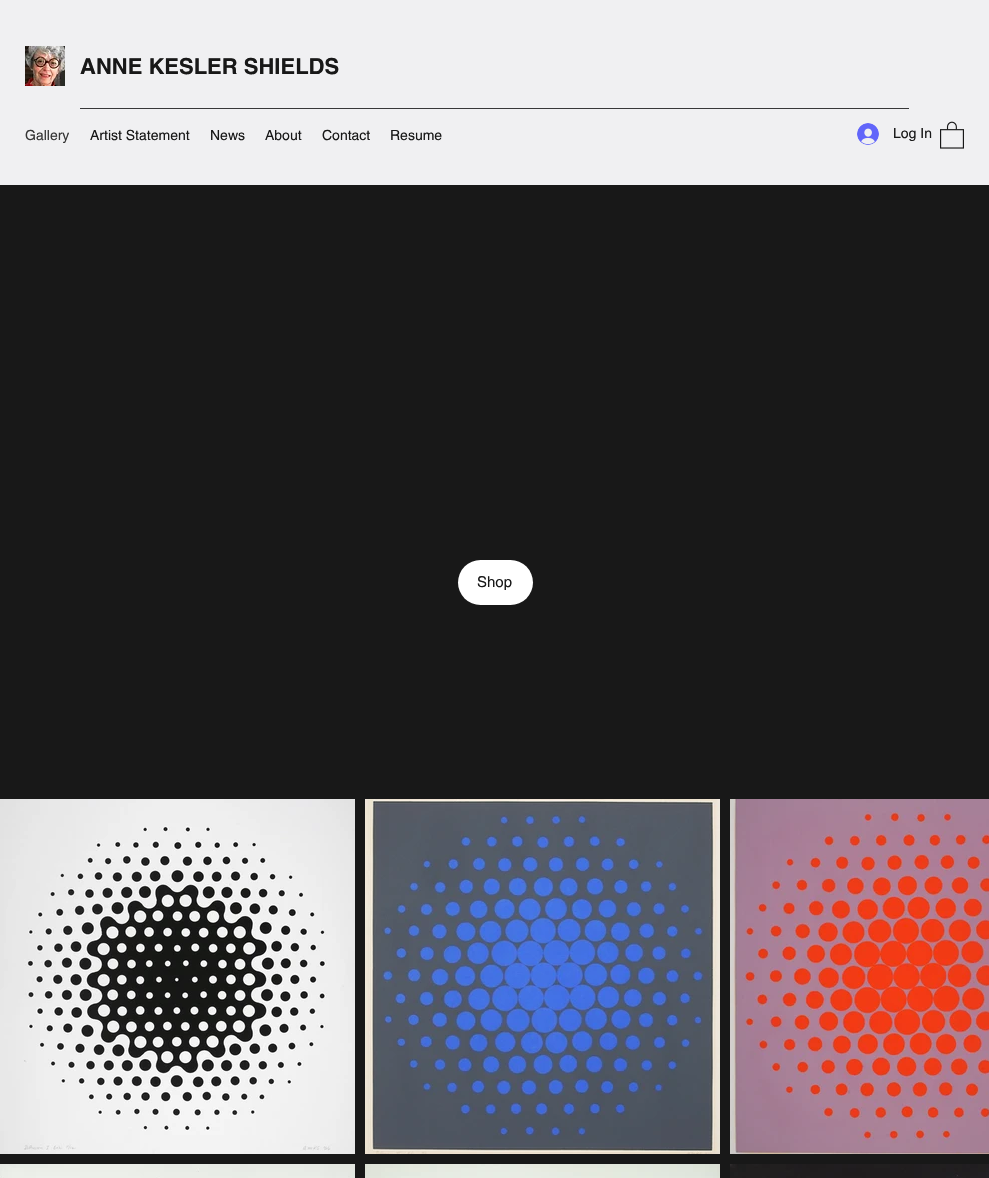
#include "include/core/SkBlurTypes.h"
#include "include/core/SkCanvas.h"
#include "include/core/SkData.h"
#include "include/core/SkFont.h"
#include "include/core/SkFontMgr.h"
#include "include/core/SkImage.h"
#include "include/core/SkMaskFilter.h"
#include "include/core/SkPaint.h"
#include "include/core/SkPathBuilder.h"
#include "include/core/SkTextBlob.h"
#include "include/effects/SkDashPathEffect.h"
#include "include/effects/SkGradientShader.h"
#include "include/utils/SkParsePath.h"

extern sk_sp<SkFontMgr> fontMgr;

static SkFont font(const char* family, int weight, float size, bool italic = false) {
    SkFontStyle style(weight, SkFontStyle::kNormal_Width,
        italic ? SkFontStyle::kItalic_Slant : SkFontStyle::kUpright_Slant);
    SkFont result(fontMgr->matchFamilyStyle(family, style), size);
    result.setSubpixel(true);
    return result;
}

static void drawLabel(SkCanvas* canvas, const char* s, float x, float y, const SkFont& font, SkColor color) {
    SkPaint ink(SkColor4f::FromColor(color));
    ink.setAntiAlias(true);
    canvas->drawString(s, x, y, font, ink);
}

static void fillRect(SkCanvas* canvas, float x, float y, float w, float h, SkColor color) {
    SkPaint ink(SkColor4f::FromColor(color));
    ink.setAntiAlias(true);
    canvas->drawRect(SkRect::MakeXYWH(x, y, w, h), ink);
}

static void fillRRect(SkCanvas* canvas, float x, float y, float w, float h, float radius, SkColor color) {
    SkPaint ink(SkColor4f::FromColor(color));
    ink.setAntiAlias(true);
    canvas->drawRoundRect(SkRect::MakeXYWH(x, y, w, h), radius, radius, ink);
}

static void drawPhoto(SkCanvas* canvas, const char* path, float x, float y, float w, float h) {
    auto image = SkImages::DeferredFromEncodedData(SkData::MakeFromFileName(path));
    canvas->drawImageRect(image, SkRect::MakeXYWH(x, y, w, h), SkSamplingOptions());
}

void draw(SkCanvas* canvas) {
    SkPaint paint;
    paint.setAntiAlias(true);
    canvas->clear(0xFF181818);
    fillRect(canvas, 0, 0, 989, 185, 0xFFF0F0F2);
    drawPhoto(canvas, "assets/img1.png", 25, 46, 40, 40);
    SkFont font1 = font("helvetica", 700, 22);
    drawLabel(canvas, "ANNE KESLER SHIELDS", 80, 74, font1, 0xFF181818);
    fillRect(canvas, 80, 108, 829, 1, 0xFF383839);
    SkFont font2 = font("helvetica", 400, 14);
    drawLabel(canvas, "Gallery", 25, 140, font2, 0xFF363636);
    drawLabel(canvas, "Artist Statement", 90, 140, font2, 0xFF181818);
    drawLabel(canvas, "News", 210, 140, font2, 0xFF181818);
    drawLabel(canvas, "About", 265, 140, font2, 0xFF181818);
    drawLabel(canvas, "Contact", 322, 140, font2, 0xFF181818);
    drawLabel(canvas, "Resume", 390, 140, font2, 0xFF181818);
    drawPhoto(canvas, "assets/img2.png", 857, 123, 22, 22);
    drawLabel(canvas, "Log In", 893, 138, font2, 0xFF181818);
    drawPhoto(canvas, "assets/img3.png", 940, 121, 24, 28);
    fillRRect(canvas, 458, 560, 75, 45, 22.5f, 0xFFFFFFFF);
    SkFont font3 = font("helvetica", 400, 15);
    drawLabel(canvas, "Shop", 477, 587, font3, 0xFF181818);
    drawPhoto(canvas, "assets/img4.png", 0, 799, 355, 355);
    drawPhoto(canvas, "assets/img5.png", 365, 799, 355, 355);
    drawPhoto(canvas, "assets/img6.png", 730, 799, 259, 355);
    drawPhoto(canvas, "assets/img7.png", 0, 1164, 355, 14);
    drawPhoto(canvas, "assets/img8.png", 365, 1164, 355, 14);
    drawPhoto(canvas, "assets/img9.png", 730, 1164, 259, 14);
}
